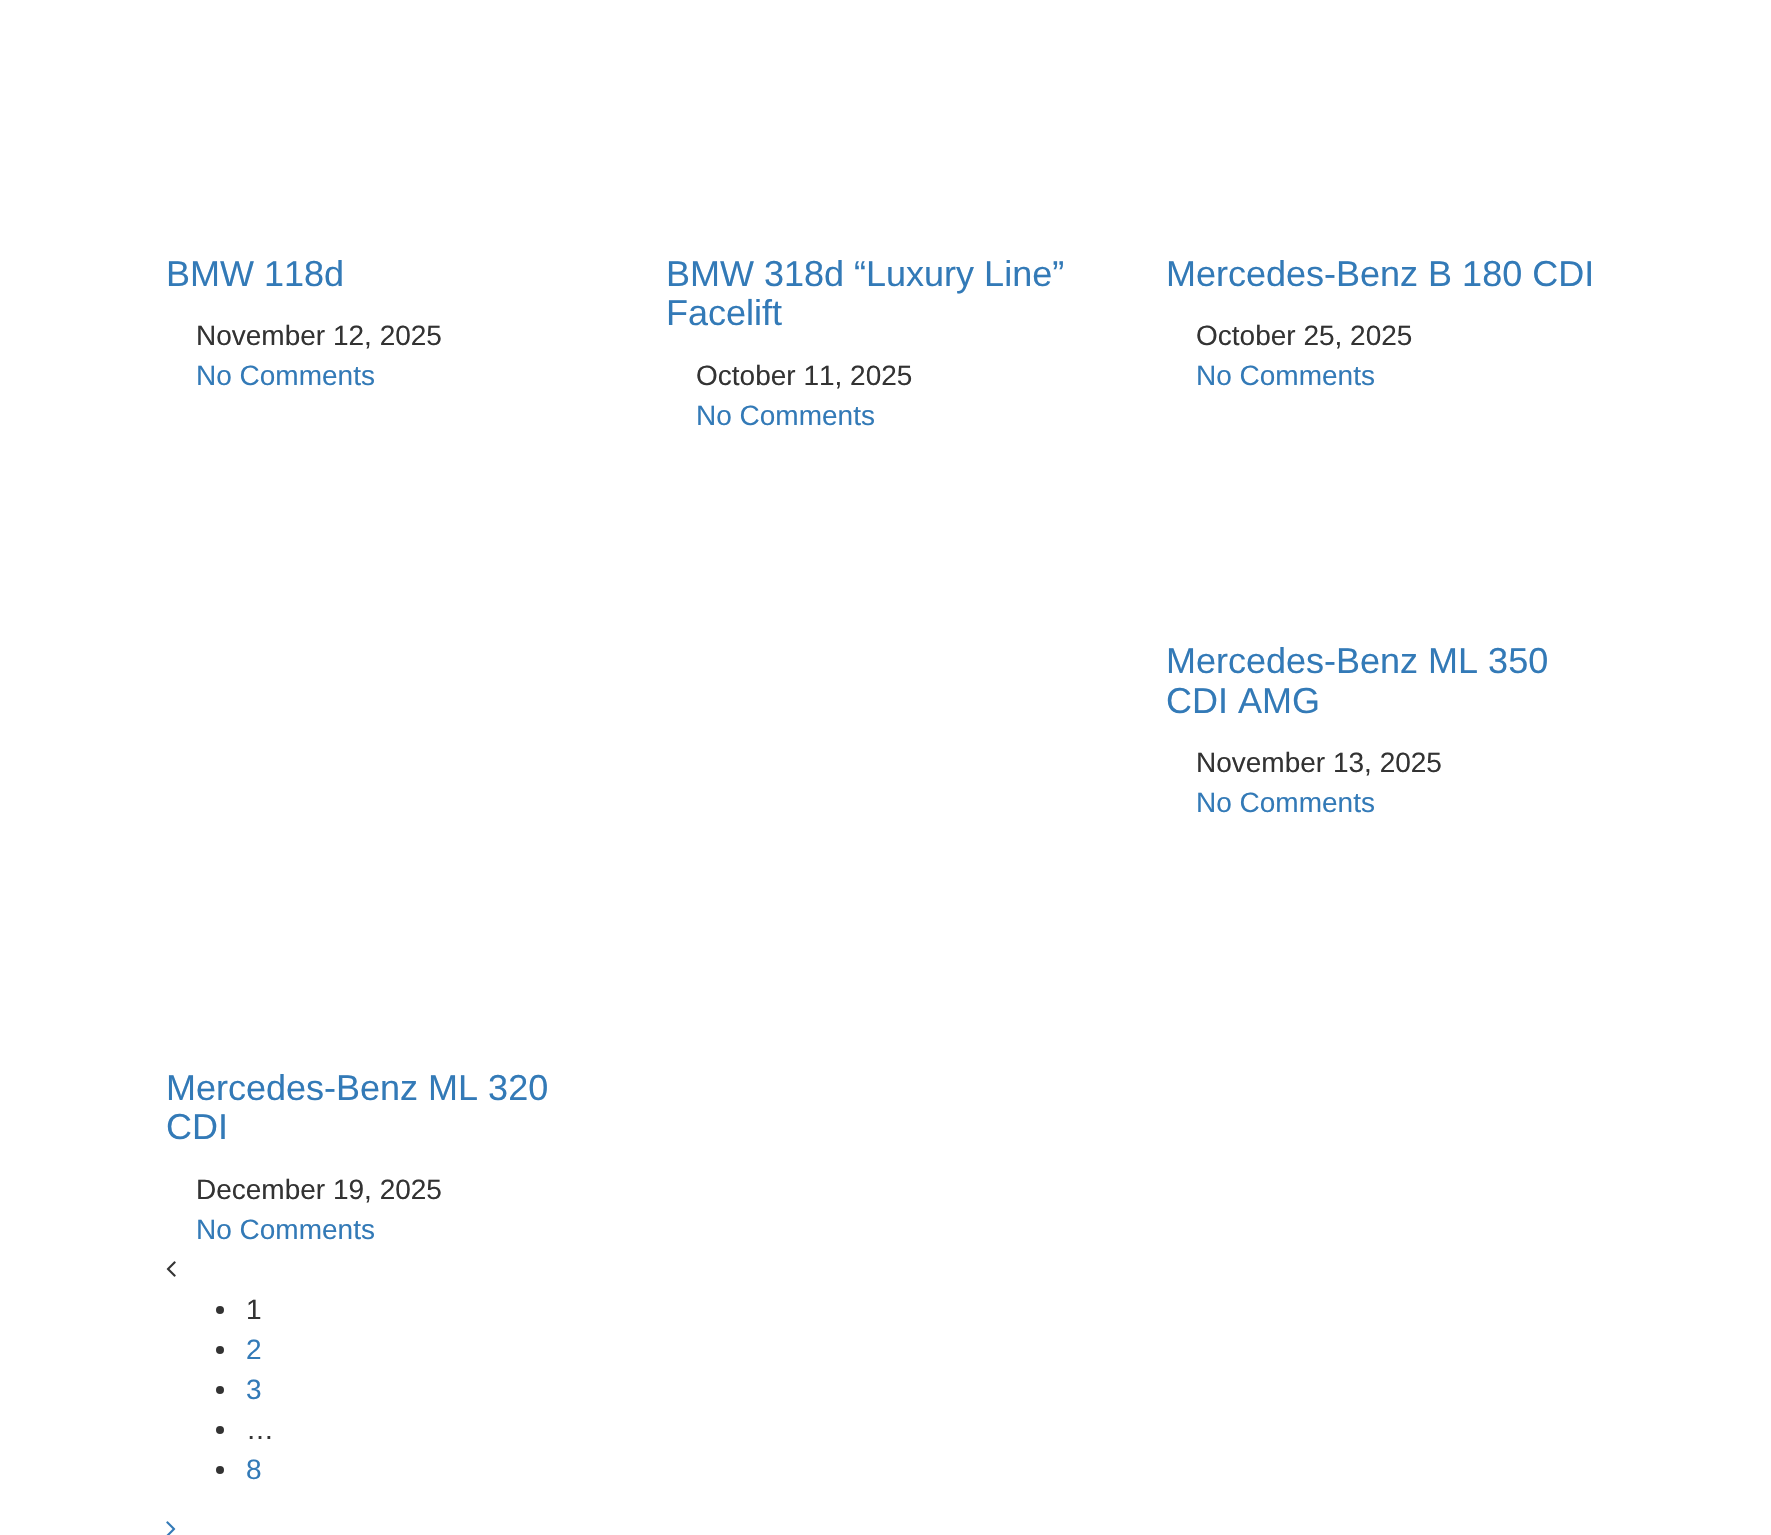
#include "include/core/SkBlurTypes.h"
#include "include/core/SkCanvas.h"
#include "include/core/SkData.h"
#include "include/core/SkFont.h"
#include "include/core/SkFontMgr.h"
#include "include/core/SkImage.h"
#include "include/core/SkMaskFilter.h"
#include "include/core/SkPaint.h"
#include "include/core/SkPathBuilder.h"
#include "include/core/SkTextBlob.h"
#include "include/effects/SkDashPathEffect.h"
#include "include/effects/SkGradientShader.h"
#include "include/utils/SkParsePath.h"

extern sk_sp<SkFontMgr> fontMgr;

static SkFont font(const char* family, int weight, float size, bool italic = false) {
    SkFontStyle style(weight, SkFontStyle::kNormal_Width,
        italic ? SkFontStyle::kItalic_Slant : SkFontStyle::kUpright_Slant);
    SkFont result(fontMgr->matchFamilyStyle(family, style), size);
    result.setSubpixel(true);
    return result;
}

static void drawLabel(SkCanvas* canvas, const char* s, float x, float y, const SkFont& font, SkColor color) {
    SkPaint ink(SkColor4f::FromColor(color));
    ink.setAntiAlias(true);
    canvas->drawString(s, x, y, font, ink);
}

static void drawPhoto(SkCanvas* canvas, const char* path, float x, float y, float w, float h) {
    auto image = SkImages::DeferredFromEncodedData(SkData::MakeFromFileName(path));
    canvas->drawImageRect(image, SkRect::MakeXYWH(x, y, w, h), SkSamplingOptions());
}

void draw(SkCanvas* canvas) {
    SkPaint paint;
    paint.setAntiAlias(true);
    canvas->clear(0xFFFFFFFF);
    SkFont font1 = font("Liberation Sans", 400, 36);
    drawLabel(canvas, "BMW 118d", 166, 286, font1, 0xFF337AB7);
    SkFont font2 = font("Liberation Sans", 400, 28);
    drawLabel(canvas, "November 12, 2025", 196, 345, font2, 0xFF333333);
    drawLabel(canvas, "No Comments", 196, 385, font2, 0xFF337AB7);
    drawLabel(canvas, "BMW 318d “Luxury Line”", 666, 286, font1, 0xFF337AB7);
    drawLabel(canvas, "Facelift", 666, 325, font1, 0xFF337AB7);
    drawLabel(canvas, "October 11, 2025", 696, 385, font2, 0xFF333333);
    drawLabel(canvas, "No Comments", 696, 425, font2, 0xFF337AB7);
    drawLabel(canvas, "Mercedes-Benz B 180 CDI", 1166, 286, font1, 0xFF337AB7);
    drawLabel(canvas, "October 25, 2025", 1196, 345, font2, 0xFF333333);
    drawLabel(canvas, "No Comments", 1196, 385, font2, 0xFF337AB7);
    drawLabel(canvas, "Mercedes-Benz ML 350", 1166, 673, font1, 0xFF337AB7);
    drawLabel(canvas, "CDI AMG", 1166, 713, font1, 0xFF337AB7);
    drawLabel(canvas, "November 13, 2025", 1196, 772, font2, 0xFF333333);
    drawLabel(canvas, "No Comments", 1196, 812, font2, 0xFF337AB7);
    drawLabel(canvas, "Mercedes-Benz ML 320", 166, 1100, font1, 0xFF337AB7);
    drawLabel(canvas, "CDI", 166, 1139, font1, 0xFF337AB7);
    drawLabel(canvas, "December 19, 2025", 196, 1199, font2, 0xFF333333);
    drawLabel(canvas, "No Comments", 196, 1239, font2, 0xFF337AB7);
    drawPhoto(canvas, "assets/img1.png", 166, 1261, 10, 16);
    paint.setColor(0xFF333333);
    canvas->drawCircle(220, 1310, 4, paint);
    drawLabel(canvas, "1", 246, 1319, font2, 0xFF333333);
    canvas->drawCircle(220, 1350, 4, paint);
    drawLabel(canvas, "2", 246, 1359, font2, 0xFF337AB7);
    canvas->drawCircle(220, 1390, 4, paint);
    drawLabel(canvas, "3", 246, 1399, font2, 0xFF337AB7);
    canvas->drawCircle(220, 1430, 4, paint);
    drawLabel(canvas, "…", 246, 1439, font2, 0xFF333333);
    canvas->drawCircle(220, 1470, 4, paint);
    drawLabel(canvas, "8", 246, 1479, font2, 0xFF337AB7);
    drawPhoto(canvas, "assets/img2.png", 166, 1521, 10, 14);
}
